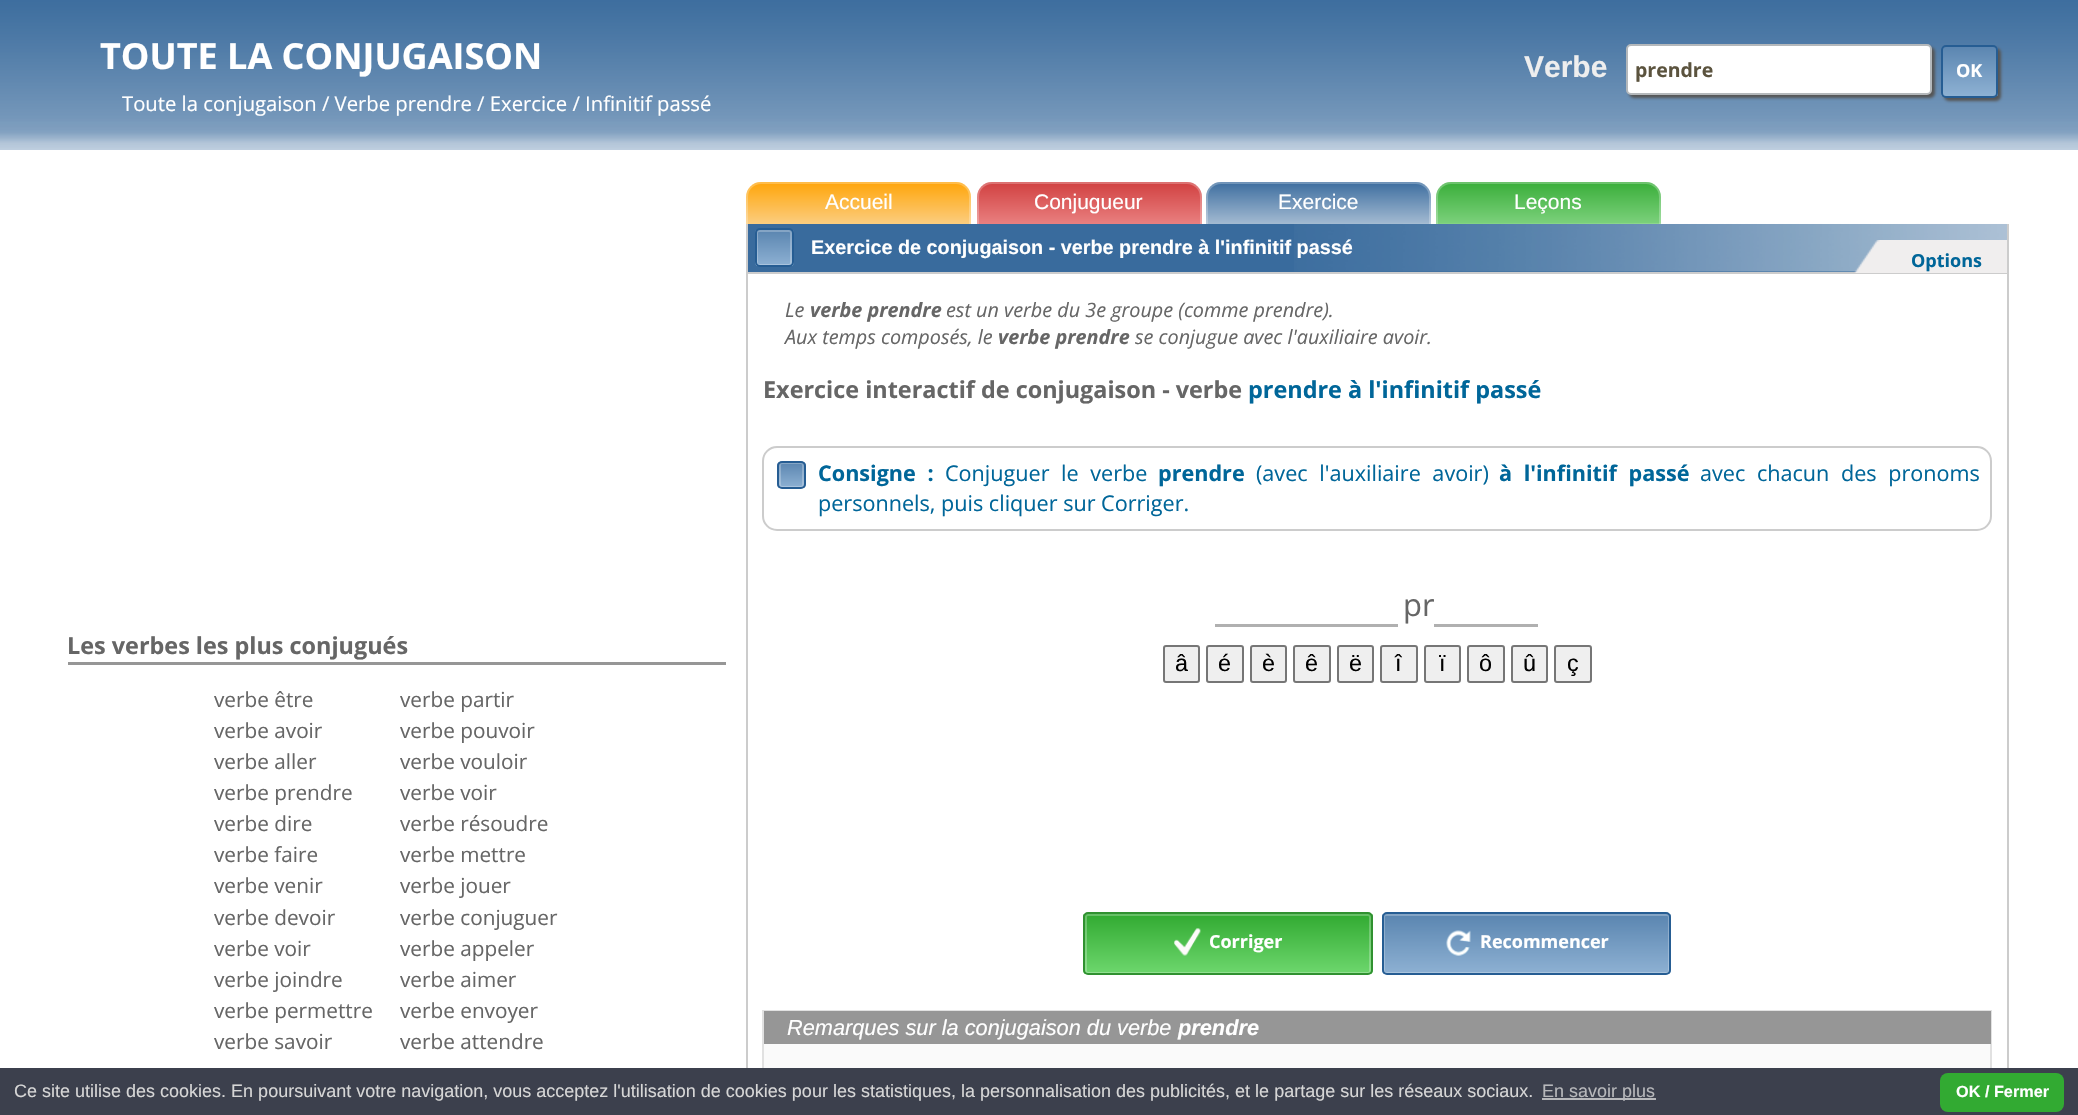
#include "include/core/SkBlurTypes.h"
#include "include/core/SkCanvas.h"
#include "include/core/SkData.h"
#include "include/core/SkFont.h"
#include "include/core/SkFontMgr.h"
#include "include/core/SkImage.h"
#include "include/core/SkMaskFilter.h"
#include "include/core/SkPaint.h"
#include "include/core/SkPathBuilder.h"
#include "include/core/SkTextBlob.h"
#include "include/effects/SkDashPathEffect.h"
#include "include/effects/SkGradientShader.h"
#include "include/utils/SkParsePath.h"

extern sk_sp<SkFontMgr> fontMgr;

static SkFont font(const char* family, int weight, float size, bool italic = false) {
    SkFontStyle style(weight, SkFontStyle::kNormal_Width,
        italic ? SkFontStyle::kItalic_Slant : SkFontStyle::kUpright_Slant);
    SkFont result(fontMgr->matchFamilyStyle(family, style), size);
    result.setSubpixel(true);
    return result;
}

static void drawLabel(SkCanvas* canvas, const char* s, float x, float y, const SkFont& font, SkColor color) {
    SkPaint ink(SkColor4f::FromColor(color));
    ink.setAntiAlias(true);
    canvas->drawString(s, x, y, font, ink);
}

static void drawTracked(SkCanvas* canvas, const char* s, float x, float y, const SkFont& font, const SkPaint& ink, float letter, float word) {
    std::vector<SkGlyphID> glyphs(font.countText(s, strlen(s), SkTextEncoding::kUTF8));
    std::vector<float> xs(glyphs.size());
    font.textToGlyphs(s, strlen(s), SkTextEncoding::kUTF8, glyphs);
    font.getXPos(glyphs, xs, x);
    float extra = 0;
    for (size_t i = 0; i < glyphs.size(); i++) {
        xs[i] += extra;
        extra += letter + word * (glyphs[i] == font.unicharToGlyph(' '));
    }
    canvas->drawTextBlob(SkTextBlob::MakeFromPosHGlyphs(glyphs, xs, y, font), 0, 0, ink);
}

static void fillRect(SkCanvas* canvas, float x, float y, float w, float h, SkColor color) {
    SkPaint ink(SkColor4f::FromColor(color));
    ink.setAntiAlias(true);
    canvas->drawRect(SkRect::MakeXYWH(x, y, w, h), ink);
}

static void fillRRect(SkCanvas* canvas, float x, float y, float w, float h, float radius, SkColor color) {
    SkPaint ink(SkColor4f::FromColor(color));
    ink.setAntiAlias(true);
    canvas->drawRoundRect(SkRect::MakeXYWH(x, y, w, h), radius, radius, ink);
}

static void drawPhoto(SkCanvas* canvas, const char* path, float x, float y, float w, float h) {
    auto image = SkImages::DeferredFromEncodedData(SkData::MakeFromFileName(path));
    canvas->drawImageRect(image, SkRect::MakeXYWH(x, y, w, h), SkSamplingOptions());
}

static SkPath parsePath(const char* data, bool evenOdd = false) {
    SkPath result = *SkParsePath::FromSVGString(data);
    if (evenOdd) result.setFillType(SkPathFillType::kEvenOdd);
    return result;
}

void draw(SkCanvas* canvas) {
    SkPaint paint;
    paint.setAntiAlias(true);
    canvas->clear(0xFFFFFFFF);
    drawPhoto(canvas, "assets/img1.png", 0, 0, 2078, 150);
    SkFont font1 = font("Open Sans", 700, 36);
    drawLabel(canvas, "TOUTE LA CONJUGAISON", 100, 69, font1, 0xFFFFFFFF);
    SkFont font2 = font("Open Sans", 400, 20.25f);
    drawLabel(canvas, "Toute la conjugaison / Verbe prendre / Exercice / Infinitif passé", 122, 111, font2, 0xFFFFFFFF);
    SkFont font3 = font("Liberation Sans", 700, 30);
    drawLabel(canvas, "Verbe", 1524, 77, font3, 0xFFEEEEEE);
    paint.setColor(0xFF555555);
    paint.setMaskFilter(SkMaskFilter::MakeBlur(kNormal_SkBlurStyle, 1.5f));
    canvas->drawRoundRect(SkRect::MakeXYWH(1629, 47, 306, 51), 5, 5, paint);
    paint.setMaskFilter(nullptr);
    paint.setColor(0xFFFFFFFF);
    canvas->drawRoundRect(SkRect::MakeXYWH(1627, 45, 304, 49), 4, 4, paint);
    paint.setStroke(true);
    paint.setStrokeWidth(2);
    paint.setColor(0xFFB4B8BB);
    canvas->drawRoundRect(SkRect::MakeXYWH(1627, 45, 304, 49), 4, 4, paint);
    SkFont font4 = font("Open Sans", 700, 19.5f);
    drawLabel(canvas, "prendre", 1635, 77, font4, 0xFF5B533E);
    paint.setStroke(false);
    paint.setColor(0xFF555555);
    paint.setMaskFilter(SkMaskFilter::MakeBlur(kNormal_SkBlurStyle, 1.5f));
    canvas->drawRoundRect(SkRect::MakeXYWH(1944, 48, 57, 53), 5, 5, paint);
    paint.setMaskFilter(nullptr);
    canvas->save();
    canvas->clipPath(parsePath("M1946 45H1993C1996 45 1998 47 1998 50V93C1998 96 1996 98 1993 98H1946C1943 98 1941 96 1941 93V50C1941 47 1943 45 1946 45Z"), true);
    {
        const SkColor colors[] = {0xFF5A85B0, 0xFF8EB1D3};
        const float stops[] = {0, 1};
        const SkPoint ends[] = {{1970, 46}, {1970, 96}};
        paint.setShader(SkGradientShader::MakeLinear(ends, colors, stops, 2, SkTileMode::kClamp));
        paint.setAlpha(255);
    }
    canvas->drawRect(SkRect::MakeXYWH(1941, 47, 57, 49), paint);
    canvas->restore();
    paint.setStroke(true);
    paint.setShader(nullptr);
    paint.setColor(0xFF265D93);
    canvas->drawRoundRect(SkRect::MakeXYWH(1942, 46, 55, 51), 4, 4, paint);
    SkFont font5 = font("Open Sans", 700, 18);
    drawLabel(canvas, "OK", 1956, 77, font5, 0xFFFFFFFF);
    fillRect(canvas, 68, 662, 658, 3, 0xFF969696);
    SkFont font6 = font("Open Sans", 700, 23.4f);
    drawLabel(canvas, "Les verbes les plus conjugués", 67, 654, font6, 0xFF666666);
    SkFont font7 = font("Open Sans", 400, 20.75f);
    drawLabel(canvas, "verbe être", 214, 707, font7, 0xFF666666);
    drawLabel(canvas, "verbe avoir", 214, 738, font7, 0xFF666666);
    drawLabel(canvas, "verbe aller", 214, 769, font7, 0xFF666666);
    drawLabel(canvas, "verbe prendre", 214, 800, font7, 0xFF666666);
    drawLabel(canvas, "verbe dire", 214, 831, font7, 0xFF666666);
    drawLabel(canvas, "verbe faire", 214, 862, font7, 0xFF666666);
    drawLabel(canvas, "verbe venir", 214, 893, font7, 0xFF666666);
    drawLabel(canvas, "verbe devoir", 214, 925, font7, 0xFF666666);
    drawLabel(canvas, "verbe voir", 214, 956, font7, 0xFF666666);
    drawLabel(canvas, "verbe joindre", 214, 987, font7, 0xFF666666);
    drawLabel(canvas, "verbe permettre", 214, 1018, font7, 0xFF666666);
    drawLabel(canvas, "verbe savoir", 214, 1049, font7, 0xFF666666);
    drawLabel(canvas, "verbe partir", 400, 707, font7, 0xFF666666);
    drawLabel(canvas, "verbe pouvoir", 400, 738, font7, 0xFF666666);
    drawLabel(canvas, "verbe vouloir", 400, 769, font7, 0xFF666666);
    drawLabel(canvas, "verbe voir", 400, 800, font7, 0xFF666666);
    drawLabel(canvas, "verbe résoudre", 400, 831, font7, 0xFF666666);
    drawLabel(canvas, "verbe mettre", 400, 862, font7, 0xFF666666);
    drawLabel(canvas, "verbe jouer", 400, 893, font7, 0xFF666666);
    drawLabel(canvas, "verbe conjuguer", 400, 925, font7, 0xFF666666);
    drawLabel(canvas, "verbe appeler", 400, 956, font7, 0xFF666666);
    drawLabel(canvas, "verbe aimer", 400, 987, font7, 0xFF666666);
    drawLabel(canvas, "verbe envoyer", 400, 1018, font7, 0xFF666666);
    drawLabel(canvas, "verbe attendre", 400, 1049, font7, 0xFF666666);
    paint.setStroke(false);
    {
        const SkColor colors[] = {0xFFFFA406, 0xFFFAE5C6};
        const float stops[] = {0, 1};
        const SkPoint ends[] = {{858, 181}, {858, 249}};
        paint.setShader(SkGradientShader::MakeLinear(ends, colors, stops, 2, SkTileMode::kClamp));
        paint.setAlpha(255);
    }
    canvas->drawRoundRect(SkRect::MakeXYWH(746, 182, 225, 67), 15, 15, paint);
    paint.setStroke(true);
    paint.setShader(nullptr);
    paint.setColor(0x40FFFFFF);
    canvas->drawRoundRect(SkRect::MakeXYWH(747, 183, 223, 65), 14, 14, paint);
    SkFont font8 = font("Liberation Sans", 400, 21);
    drawLabel(canvas, "Accueil", 825, 209, font8, 0xFFFFFFFF);
    paint.setStroke(false);
    {
        const SkColor colors[] = {0xFFD03F3F, 0xFFF8A5A5};
        const float stops[] = {0, 1};
        const SkPoint ends[] = {{1089, 181}, {1089, 249}};
        paint.setShader(SkGradientShader::MakeLinear(ends, colors, stops, 2, SkTileMode::kClamp));
        paint.setAlpha(255);
    }
    canvas->drawRoundRect(SkRect::MakeXYWH(977, 182, 225, 67), 15, 15, paint);
    paint.setStroke(true);
    paint.setShader(nullptr);
    paint.setColor(0x40FFFFFF);
    canvas->drawRoundRect(SkRect::MakeXYWH(978, 183, 223, 65), 14, 14, paint);
    drawLabel(canvas, "Conjugueur", 1034, 209, font8, 0xFFFFFFFF);
    paint.setStroke(false);
    {
        const SkColor colors[] = {0xFF3B6C9E, 0xFFE0E8F0};
        const float stops[] = {0, 1};
        const SkPoint ends[] = {{1319, 181}, {1319, 249}};
        paint.setShader(SkGradientShader::MakeLinear(ends, colors, stops, 2, SkTileMode::kClamp));
        paint.setAlpha(255);
    }
    canvas->drawRoundRect(SkRect::MakeXYWH(1206, 182, 225, 67), 15, 15, paint);
    paint.setStroke(true);
    paint.setShader(nullptr);
    paint.setColor(0x40FFFFFF);
    canvas->drawRoundRect(SkRect::MakeXYWH(1207, 183, 223, 65), 14, 14, paint);
    drawLabel(canvas, "Exercice", 1278, 209, font8, 0xFFFFFFFF);
    paint.setStroke(false);
    {
        const SkColor colors[] = {0xFF38AD38, 0xFFA4E6A4};
        const float stops[] = {0, 1};
        const SkPoint ends[] = {{1548, 181}, {1548, 249}};
        paint.setShader(SkGradientShader::MakeLinear(ends, colors, stops, 2, SkTileMode::kClamp));
        paint.setAlpha(255);
    }
    canvas->drawRoundRect(SkRect::MakeXYWH(1436, 182, 225, 67), 15, 15, paint);
    paint.setStroke(true);
    paint.setShader(nullptr);
    paint.setColor(0x40FFFFFF);
    canvas->drawRoundRect(SkRect::MakeXYWH(1437, 183, 223, 65), 14, 14, paint);
    drawLabel(canvas, "Leçons", 1514, 209, font8, 0xFFFFFFFF);
    fillRect(canvas, 748, 224, 1259, 48, 0xFF396B9D);
    drawPhoto(canvas, "assets/img2.png", 1294, 223, 713, 49);
    fillRect(canvas, 2007, 224, 2, 48, 0xFFCCCCCC);
    fillRect(canvas, 746, 224, 2, 48, 0xFFCCCCCC);
    canvas->save();
    canvas->clipPath(parsePath("M760 228H789C792 228 794 230 794 233V262C794 265 792 267 789 267H760C757 267 755 265 755 262V233C755 230 757 228 760 228Z"), true);
    paint.setStroke(false);
    {
        const SkColor colors[] = {0xFF5A85B0, 0xFF8EB1D3};
        const float stops[] = {0, 1};
        const SkPoint ends[] = {{774, 230}, {774, 266}};
        paint.setShader(SkGradientShader::MakeLinear(ends, colors, stops, 2, SkTileMode::kClamp));
        paint.setAlpha(255);
    }
    canvas->drawRect(SkRect::MakeXYWH(755, 230, 39, 36), paint);
    canvas->restore();
    paint.setStroke(true);
    paint.setShader(nullptr);
    paint.setColor(0x40FFFFFF);
    canvas->drawRoundRect(SkRect::MakeXYWH(757, 231, 34, 34), 2, 2, paint);
    paint.setColor(0xFF265D93);
    canvas->drawRoundRect(SkRect::MakeXYWH(756, 229, 37, 37), 4, 4, paint);
    SkFont font9 = font("Liberation Sans", 700, 19.8f);
    drawLabel(canvas, "Exercice de conjugaison - verbe prendre à l'infinitif passé", 811, 254, font9, 0xFFFFFFFF);
    paint.setColor(0xFFCCCCCC);
    canvas->drawRect(SkRect::MakeXYWH(747, 273, 1261, 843), paint);
    drawPhoto(canvas, "assets/img3.png", 1854, 240, 153, 33);
    drawLabel(canvas, "Options", 1911, 267, font5, 0xFF006699);
    SkFont font10 = font("Open Sans", 400, 19.8f, true);
    drawLabel(canvas, "Le", 785, 317, font10, 0xFF666666);
    SkFont font11 = font("Open Sans", 700, 19.8f, true);
    drawLabel(canvas, "verbe prendre", 810, 317, font11, 0xFF666666);
    drawLabel(canvas, "est un verbe du 3e groupe (comme prendre).", 946, 317, font10, 0xFF666666);
    drawLabel(canvas, "Aux temps composés, le", 785, 344, font10, 0xFF666666);
    drawLabel(canvas, "verbe prendre", 998, 344, font11, 0xFF666666);
    drawLabel(canvas, "se conjugue avec l'auxiliaire avoir.", 1135, 344, font10, 0xFF666666);
    drawLabel(canvas, "Exercice interactif de conjugaison - verbe", 763, 398, font6, 0xFF666666);
    drawLabel(canvas, "prendre à l'infinitif passé", 1248, 398, font6, 0xFF006699);
    canvas->drawRoundRect(SkRect::MakeXYWH(763, 447, 1228, 83), 14, 14, paint);
    canvas->save();
    canvas->clipPath(parsePath("M782 461H801C804 461 806 463 806 466V484C806 487 804 489 801 489H782C779 489 777 487 777 484V466C777 463 779 461 782 461Z"), true);
    paint.setStroke(false);
    {
        const SkColor colors[] = {0xFF5A85B0, 0xFF8EB1D3};
        const float stops[] = {0, 1};
        const SkPoint ends[] = {{791, 462}, {791, 488}};
        paint.setShader(SkGradientShader::MakeLinear(ends, colors, stops, 2, SkTileMode::kClamp));
        paint.setAlpha(255);
    }
    canvas->drawRect(SkRect::MakeXYWH(777, 462, 29, 26), paint);
    canvas->restore();
    paint.setStroke(true);
    paint.setShader(nullptr);
    paint.setColor(0x40FFFFFF);
    canvas->drawRoundRect(SkRect::MakeXYWH(780, 463, 23, 24), 2, 2, paint);
    paint.setColor(0xFF265D93);
    canvas->drawRoundRect(SkRect::MakeXYWH(778, 462, 27, 26), 4, 4, paint);
    SkFont font12 = font("Open Sans", 700, 21.6f);
    paint.setStroke(false);
    paint.setColor(0xFF006699);
    drawTracked(canvas, "Consigne :", 818, 481, font12, paint, 0, 6);
    SkFont font13 = font("Open Sans", 400, 21.6f);
    drawTracked(canvas, "Conjuguer le verbe", 945, 481, font13, paint, 0, 6);
    drawLabel(canvas, "prendre", 1158, 481, font12, 0xFF006699);
    drawTracked(canvas, "(avec l'auxiliaire avoir)", 1256, 481, font13, paint, 0, 6);
    drawTracked(canvas, "à l'infinitif passé", 1499, 481, font12, paint, 0, 6);
    drawTracked(canvas, "avec chacun des pronoms", 1700, 481, font13, paint, 0, 6);
    drawLabel(canvas, "personnels, puis cliquer sur Corriger.", 818, 511, font13, 0xFF006699);
    fillRect(canvas, 1215, 624, 183, 3, 0xFFB0B0B0);
    SkFont font14 = font("Open Sans", 400, 31);
    drawLabel(canvas, "pr", 1403, 616, font14, 0xFF666666);
    fillRect(canvas, 1434, 599, 1, 2, 0xFFFFFFFF);
    fillRect(canvas, 1434, 624, 104, 3, 0xFFB0B0B0);
    paint.setColor(0xFFEFEFEF);
    canvas->drawRoundRect(SkRect::MakeXYWH(1164, 646, 35, 36), 2, 2, paint);
    paint.setStroke(true);
    paint.setColor(0xFF767676);
    canvas->drawRoundRect(SkRect::MakeXYWH(1164, 646, 35, 36), 2, 2, paint);
    SkFont font15 = font("Liberation Sans", 400, 23.4f);
    drawLabel(canvas, "â", 1175, 671, font15, 0xFF000000);
    paint.setStroke(false);
    paint.setColor(0xFFEFEFEF);
    canvas->drawRoundRect(SkRect::MakeXYWH(1207, 646, 36, 36), 2, 2, paint);
    paint.setStroke(true);
    paint.setColor(0xFF767676);
    canvas->drawRoundRect(SkRect::MakeXYWH(1207, 646, 36, 36), 2, 2, paint);
    drawLabel(canvas, "é", 1218, 671, font15, 0xFF000000);
    paint.setStroke(false);
    paint.setColor(0xFFEFEFEF);
    canvas->drawRoundRect(SkRect::MakeXYWH(1251, 646, 35, 36), 2, 2, paint);
    paint.setStroke(true);
    paint.setColor(0xFF767676);
    canvas->drawRoundRect(SkRect::MakeXYWH(1251, 646, 35, 36), 2, 2, paint);
    drawLabel(canvas, "è", 1262, 671, font15, 0xFF000000);
    paint.setStroke(false);
    paint.setColor(0xFFEFEFEF);
    canvas->drawRoundRect(SkRect::MakeXYWH(1294, 646, 36, 36), 2, 2, paint);
    paint.setStroke(true);
    paint.setColor(0xFF767676);
    canvas->drawRoundRect(SkRect::MakeXYWH(1294, 646, 36, 36), 2, 2, paint);
    drawLabel(canvas, "ê", 1305, 671, font15, 0xFF000000);
    paint.setStroke(false);
    paint.setColor(0xFFEFEFEF);
    canvas->drawRoundRect(SkRect::MakeXYWH(1338, 646, 35, 36), 2, 2, paint);
    paint.setStroke(true);
    paint.setColor(0xFF767676);
    canvas->drawRoundRect(SkRect::MakeXYWH(1338, 646, 35, 36), 2, 2, paint);
    drawLabel(canvas, "ë", 1349, 671, font15, 0xFF000000);
    paint.setStroke(false);
    paint.setColor(0xFFEFEFEF);
    canvas->drawRoundRect(SkRect::MakeXYWH(1381, 646, 36, 36), 2, 2, paint);
    paint.setStroke(true);
    paint.setColor(0xFF767676);
    canvas->drawRoundRect(SkRect::MakeXYWH(1381, 646, 36, 36), 2, 2, paint);
    drawLabel(canvas, "î", 1395, 671, font15, 0xFF000000);
    paint.setStroke(false);
    paint.setColor(0xFFEFEFEF);
    canvas->drawRoundRect(SkRect::MakeXYWH(1425, 646, 35, 36), 2, 2, paint);
    paint.setStroke(true);
    paint.setColor(0xFF767676);
    canvas->drawRoundRect(SkRect::MakeXYWH(1425, 646, 35, 36), 2, 2, paint);
    drawLabel(canvas, "ï", 1439, 671, font15, 0xFF000000);
    paint.setStroke(false);
    paint.setColor(0xFFEFEFEF);
    canvas->drawRoundRect(SkRect::MakeXYWH(1468, 646, 36, 36), 2, 2, paint);
    paint.setStroke(true);
    paint.setColor(0xFF767676);
    canvas->drawRoundRect(SkRect::MakeXYWH(1468, 646, 36, 36), 2, 2, paint);
    drawLabel(canvas, "ô", 1479, 671, font15, 0xFF000000);
    paint.setStroke(false);
    paint.setColor(0xFFEFEFEF);
    canvas->drawRoundRect(SkRect::MakeXYWH(1512, 646, 35, 36), 2, 2, paint);
    paint.setStroke(true);
    paint.setColor(0xFF767676);
    canvas->drawRoundRect(SkRect::MakeXYWH(1512, 646, 35, 36), 2, 2, paint);
    drawLabel(canvas, "û", 1523, 671, font15, 0xFF000000);
    paint.setStroke(false);
    paint.setColor(0xFFEFEFEF);
    canvas->drawRoundRect(SkRect::MakeXYWH(1555, 646, 36, 36), 2, 2, paint);
    paint.setStroke(true);
    paint.setColor(0xFF767676);
    canvas->drawRoundRect(SkRect::MakeXYWH(1555, 646, 36, 36), 2, 2, paint);
    drawLabel(canvas, "ç", 1567, 671, font15, 0xFF000000);
    canvas->save();
    canvas->clipPath(parsePath("M1088 912H1368C1371 912 1373 914 1373 917V970C1373 973 1371 975 1368 975H1088C1085 975 1083 973 1083 970V917C1083 914 1085 912 1088 912Z"), true);
    paint.setStroke(false);
    {
        const SkColor colors[] = {0xFF32AA32, 0xFF6DD76D};
        const float stops[] = {0, 1};
        const SkPoint ends[] = {{1228, 914}, {1228, 974}};
        paint.setShader(SkGradientShader::MakeLinear(ends, colors, stops, 2, SkTileMode::kClamp));
        paint.setAlpha(255);
    }
    canvas->drawRect(SkRect::MakeXYWH(1083, 914, 290, 60), paint);
    canvas->restore();
    paint.setStroke(true);
    paint.setShader(nullptr);
    paint.setColor(0x40FFFFFF);
    canvas->drawRoundRect(SkRect::MakeXYWH(1086, 915, 284, 58), 2, 2, paint);
    paint.setColor(0xFF309130);
    canvas->drawRoundRect(SkRect::MakeXYWH(1084, 913, 288, 61), 4, 4, paint);
    drawPhoto(canvas, "assets/img4.png", 1174, 928, 27, 28);
    drawLabel(canvas, "Corriger", 1209, 948, font5, 0xFFFFFFFF);
    canvas->save();
    canvas->clipPath(parsePath("M1387 912H1666C1669 912 1671 914 1671 917V970C1671 973 1669 975 1666 975H1387C1384 975 1382 973 1382 970V917C1382 914 1384 912 1387 912Z"), true);
    paint.setStroke(false);
    {
        const SkColor colors[] = {0xFF5A85B0, 0xFF8EB1D3};
        const float stops[] = {0, 1};
        const SkPoint ends[] = {{1526, 914}, {1526, 974}};
        paint.setShader(SkGradientShader::MakeLinear(ends, colors, stops, 2, SkTileMode::kClamp));
        paint.setAlpha(255);
    }
    canvas->drawRect(SkRect::MakeXYWH(1382, 914, 289, 60), paint);
    canvas->restore();
    paint.setStroke(true);
    paint.setShader(nullptr);
    paint.setColor(0x40FFFFFF);
    canvas->drawRoundRect(SkRect::MakeXYWH(1384, 915, 285, 58), 2, 2, paint);
    paint.setColor(0xFF265D93);
    canvas->drawRoundRect(SkRect::MakeXYWH(1383, 913, 287, 61), 4, 4, paint);
    drawPhoto(canvas, "assets/img5.png", 1446, 930, 25, 26);
    drawLabel(canvas, "Recommencer", 1480, 948, font5, 0xFFFFFFFF);
    fillRect(canvas, 764, 1044, 1226, 24, 0xFFFAFAFA);
    paint.setColor(0xFFE1E1E1);
    canvas->drawRect(SkRect::MakeXYWH(763, 1011, 1228, 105), paint);
    fillRect(canvas, 764, 1011, 1227, 33, 0xFF969696);
    SkFont font16 = font("Liberation Sans", 400, 21.75f, true);
    drawLabel(canvas, "Remarques sur la conjugaison du verbe", 787, 1035, font16, 0xFFFFFFFF);
    SkFont font17 = font("Liberation Sans", 700, 21.75f, true);
    drawLabel(canvas, "prendre", 1178, 1035, font17, 0xFFFFFFFF);
    fillRect(canvas, 0, 1068, 2078, 47, 0xFF3C404D);
    SkFont font18 = font("Liberation Sans", 400, 18);
    drawLabel(canvas, "Ce site utilise des cookies. En poursuivant votre navigation, vous acceptez l'utilisation de cookies pour les statistiques, la personnalisation des publicités, et le partage sur les réseaux sociaux.", 14, 1097, font18, 0xFFD6D6D6);
    fillRect(canvas, 1542, 1098, 114, 2, 0xFFB7B8BB);
    drawLabel(canvas, "En savoir plus", 1542, 1097, font18, 0xFFB7B8BB);
    fillRRect(canvas, 1940, 1073, 124, 39, 8, 0xFF32AA32);
    SkFont font19 = font("Liberation Sans", 700, 16.25f);
    drawLabel(canvas, "OK / Fermer", 1956, 1097, font19, 0xFFFFFFFF);
}
